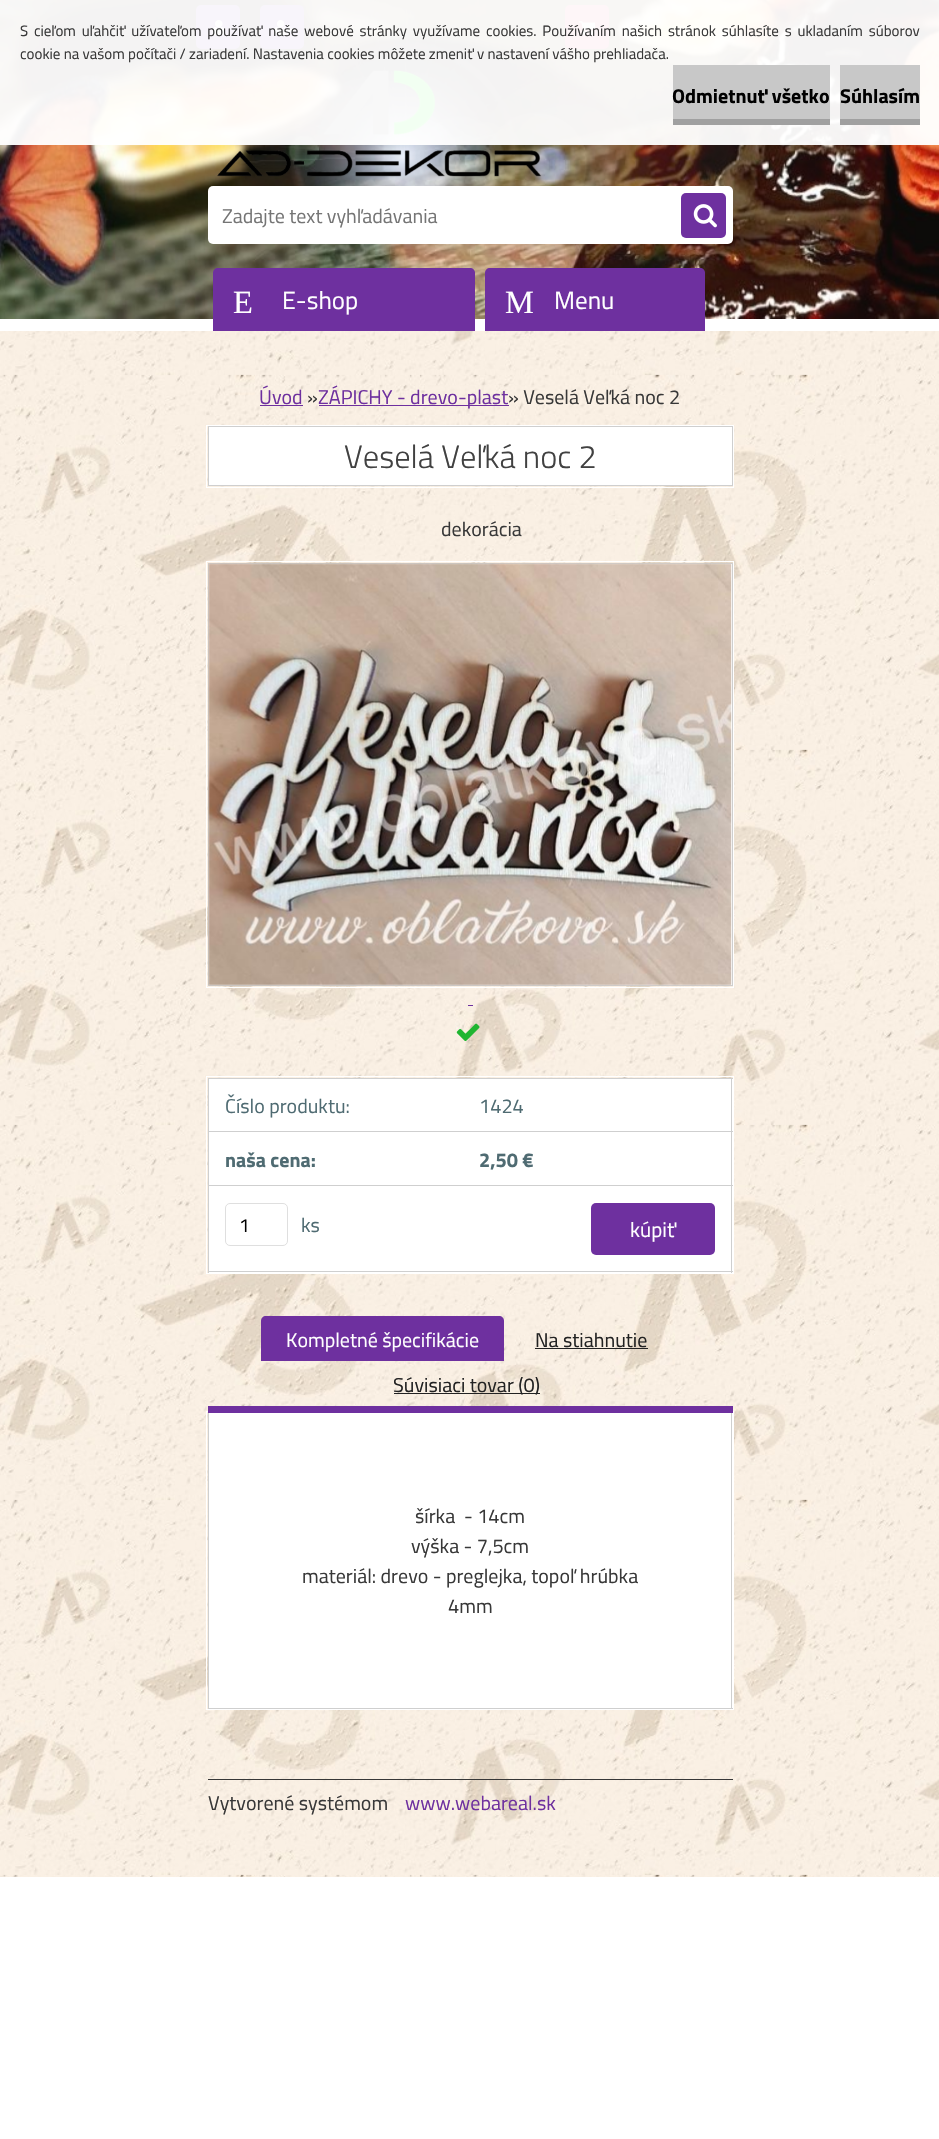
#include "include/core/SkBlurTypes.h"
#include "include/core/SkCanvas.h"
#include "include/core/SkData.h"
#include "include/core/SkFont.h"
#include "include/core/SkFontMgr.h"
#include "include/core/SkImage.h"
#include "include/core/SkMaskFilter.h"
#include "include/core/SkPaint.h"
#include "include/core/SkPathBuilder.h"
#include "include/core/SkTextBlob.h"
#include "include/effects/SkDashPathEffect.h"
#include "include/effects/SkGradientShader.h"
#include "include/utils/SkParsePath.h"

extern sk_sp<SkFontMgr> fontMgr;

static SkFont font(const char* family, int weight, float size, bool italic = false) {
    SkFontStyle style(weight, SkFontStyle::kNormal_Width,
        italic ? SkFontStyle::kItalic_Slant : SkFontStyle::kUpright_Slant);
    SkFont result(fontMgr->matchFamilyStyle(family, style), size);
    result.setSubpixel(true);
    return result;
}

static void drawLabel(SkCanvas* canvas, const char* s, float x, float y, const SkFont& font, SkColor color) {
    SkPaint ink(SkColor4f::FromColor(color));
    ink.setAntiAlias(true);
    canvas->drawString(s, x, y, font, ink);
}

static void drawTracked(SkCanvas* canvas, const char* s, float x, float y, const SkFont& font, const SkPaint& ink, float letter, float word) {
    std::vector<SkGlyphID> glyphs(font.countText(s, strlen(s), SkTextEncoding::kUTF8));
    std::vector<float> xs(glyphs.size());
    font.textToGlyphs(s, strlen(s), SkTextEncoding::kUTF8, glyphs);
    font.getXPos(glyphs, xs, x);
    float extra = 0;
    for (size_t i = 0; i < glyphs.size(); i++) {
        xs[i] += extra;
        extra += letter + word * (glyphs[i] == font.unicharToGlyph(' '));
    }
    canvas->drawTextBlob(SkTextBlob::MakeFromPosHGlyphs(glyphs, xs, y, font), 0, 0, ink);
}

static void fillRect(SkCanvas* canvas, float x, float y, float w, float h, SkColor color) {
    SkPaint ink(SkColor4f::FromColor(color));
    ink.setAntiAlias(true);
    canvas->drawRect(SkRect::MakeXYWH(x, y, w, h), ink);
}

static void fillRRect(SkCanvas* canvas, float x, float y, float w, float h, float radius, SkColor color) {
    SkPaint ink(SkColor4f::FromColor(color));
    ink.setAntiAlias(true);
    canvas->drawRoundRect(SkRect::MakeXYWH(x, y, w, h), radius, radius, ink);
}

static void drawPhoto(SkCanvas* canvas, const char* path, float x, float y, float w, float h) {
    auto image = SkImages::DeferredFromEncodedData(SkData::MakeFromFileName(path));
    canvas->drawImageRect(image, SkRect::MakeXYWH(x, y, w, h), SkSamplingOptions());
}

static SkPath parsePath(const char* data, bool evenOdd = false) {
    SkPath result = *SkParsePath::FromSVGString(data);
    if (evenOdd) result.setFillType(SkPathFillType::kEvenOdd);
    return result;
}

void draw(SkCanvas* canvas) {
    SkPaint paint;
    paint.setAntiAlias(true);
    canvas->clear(0xFFFFFFFF);
    drawPhoto(canvas, "assets/img1.png", 0, 0, 939, 319);
    drawPhoto(canvas, "assets/img2.png", 217, 70, 325, 107);
    fillRRect(canvas, 196, 5, 44, 44, 5, 0xFF6E309F);
    drawPhoto(canvas, "assets/img5.png", 212, 20, 13, 15);
    fillRRect(canvas, 260, 5, 44, 44, 5, 0xFF6E309F);
    drawPhoto(canvas, "assets/img6.png", 273, 20, 21, 15);
    fillRRect(canvas, 565, 5, 44, 44, 5, 0xFFE24666);
    drawPhoto(canvas, "assets/img7.png", 578, 21, 17, 14);
    fillRect(canvas, 0, 0, 939, 145, 0xF2FFFFFF);
    SkFont font1 = font("Titillium Web", 400, 15);
    paint.setColor(0xFF383838);
    drawTracked(canvas, "S cieľom uľahčiť užívateľom používať naše webové stránky využívame cookies. Používaním našich stránok súhlasíte s ukladaním súborov", 20, 36, font1, paint, 0, 2.5f);
    drawLabel(canvas, "cookie na vašom počítači / zariadení. Nastavenia cookies môžete zmeniť v nastavení vášho prehliadača.", 20, 59, font1, 0xFF383838);
    fillRect(canvas, 673, 65, 157, 54, 0xFFC8C8C8);
    fillRect(canvas, 673, 119, 157, 6, 0xFFA0A0A0);
    SkFont font2 = font("Titillium Web", 700, 20);
    drawLabel(canvas, "Odmietnuť všetko", 672, 103, font2, 0xFF000000);
    fillRect(canvas, 840, 65, 80, 54, 0xFFC8C8C8);
    fillRect(canvas, 840, 119, 80, 6, 0xFFA0A0A0);
    drawLabel(canvas, "Súhlasím", 840, 103, font2, 0xFF000000);
    fillRRect(canvas, 208, 186, 525, 58, 5, 0xFFFFFFFF);
    SkFont font3 = font("Titillium Web", 400, 20);
    drawLabel(canvas, "Zadajte text vyhľadávania", 222, 223, font3, 0xFF757575);
    fillRRect(canvas, 681, 193, 45, 45, 5, 0xFF6E309F);
    drawPhoto(canvas, "assets/img3.png", 693, 204, 24, 24);
    drawPhoto(canvas, "assets/img4.png", 0, 331, 939, 1546);
    paint.setColor(0xFF6E309F);
    canvas->drawPath(parsePath("M218 268H470C473 268 475 270 475 273V331H213V273C213 270 215 268 218 268Z"), paint);
    SkFont font4 = font("Liberation Serif", 400, 32.5f);
    drawLabel(canvas, "E", 233, 313, font4, 0xFFFFFFFF);
    SkFont font5 = font("Titillium Web", 400, 25);
    drawLabel(canvas, "E-shop", 282, 309, font5, 0xFFFFFFFF);
    canvas->drawPath(parsePath("M490 268H700C703 268 705 270 705 273V331H485V273C485 270 487 268 490 268Z"), paint);
    drawLabel(canvas, "M", 505, 313, font4, 0xFFFFFFFF);
    drawLabel(canvas, "Menu", 554, 309, font5, 0xFFFFFFFF);
    drawLabel(canvas, "Úvod", 259, 404, font3, 0xFF6E309F);
    fillRect(canvas, 260, 405, 43, 1, 0xFF6E309F);
    drawLabel(canvas, "»", 307, 404, font3, 0xFF383838);
    fillRect(canvas, 319, 405, 190, 1, 0xFF6E309F);
    drawLabel(canvas, "ZÁPICHY - drevo-plast", 318, 404, font3, 0xFF6E309F);
    drawLabel(canvas, "» Veselá Veľká noc 2", 508, 404, font3, 0xFF383838);
    paint.setStroke(true);
    paint.setStrokeWidth(1);
    paint.setColor(0xFFFFFFFF);
    canvas->drawRect(SkRect::MakeXYWH(206.5f, 425.5f, 527, 62), paint);
    paint.setStroke(false);
    canvas->drawRect(SkRect::MakeXYWH(208.5f, 426.5f, 524, 59), paint);
    paint.setStroke(true);
    paint.setColor(0xFFCFCFCF);
    canvas->drawRect(SkRect::MakeXYWH(208.5f, 426.5f, 524, 59), paint);
    SkFont font6 = font("Titillium Web", 300, 32.5f);
    drawLabel(canvas, "Veselá Veľká noc 2", 344, 468, font6, 0xFF414141);
    drawLabel(canvas, "dekorácia", 441, 536, font3, 0xFF383838);
    paint.setColor(0xFFFFFFFF);
    canvas->drawRect(SkRect::MakeXYWH(206.5f, 561.5f, 527, 426), paint);
    paint.setStroke(false);
    canvas->drawRect(SkRect::MakeXYWH(208.5f, 563.5f, 524, 422), paint);
    paint.setStroke(true);
    paint.setColor(0xFFCFCFCF);
    canvas->drawRect(SkRect::MakeXYWH(208.5f, 563.5f, 524, 422), paint);
    drawPhoto(canvas, "assets/img8.png", 208, 563, 524, 423);
    fillRect(canvas, 468, 1005, 5, 1, 0xFF6E309F);
    drawPhoto(canvas, "assets/img9.png", 456, 1023, 24, 18);
    paint.setColor(0xFFFFFFFF);
    canvas->drawRect(SkRect::MakeXYWH(206.5f, 1076.5f, 527, 197), paint);
    fillRect(canvas, 209, 1079, 524, 194, 0xFFFFFFFF);
    fillRect(canvas, 208, 1078, 525, 1, 0xFFCFCFCF);
    fillRect(canvas, 731, 1078, 1, 195, 0xFFCFCFCF);
    fillRect(canvas, 208, 1271, 525, 1, 0xFFCFCFCF);
    fillRect(canvas, 208, 1078, 1, 195, 0xFFCFCFCF);
    drawLabel(canvas, "Číslo produktu:", 225, 1113, font3, 0xFF4F6B72);
    drawLabel(canvas, "1424", 479, 1113, font3, 0xFF4F6B72);
    fillRect(canvas, 208, 1131, 525, 1, 0xFFCFCFCF);
    drawLabel(canvas, "naša cena:", 225, 1167, font2, 0xFF4F6B72);
    drawLabel(canvas, "2,50 €", 479, 1167, font2, 0xFF4F6B72);
    fillRect(canvas, 208, 1185, 525, 1, 0xFFCFCFCF);
    paint.setColor(0xFFDFDFDF);
    canvas->drawRoundRect(SkRect::MakeXYWH(225.5f, 1203.5f, 62, 42), 4.5f, 4.5f, paint);
    SkFont font7 = font("Titillium Web", 400, 19);
    drawLabel(canvas, "1", 239, 1232, font7, 0xFF000000);
    drawLabel(canvas, "ks", 301, 1232, font3, 0xFF4F6B72);
    fillRRect(canvas, 591, 1203, 124, 52, 5, 0xFF6E309F);
    SkFont font8 = font("Titillium Web", 400, 21);
    drawLabel(canvas, "kúpiť", 630, 1237, font8, 0xFFFFFFFF);
    paint.setColor(0xFFFFFFFF);
    canvas->drawRect(SkRect::MakeXYWH(206.5f, 1411.5f, 527, 298), paint);
    fillRect(canvas, 208, 1406, 525, 7, 0xFF6E309F);
    paint.setStroke(false);
    paint.setColor(0xFF6E309F);
    canvas->drawPath(parsePath("M266 1316H499C502 1316 504 1318 504 1321V1361H261V1321C261 1318 263 1316 266 1316Z"), paint);
    drawLabel(canvas, "Kompletné špecifikácie", 286, 1347, font3, 0xFFFFFFFF);
    drawLabel(canvas, "Na stiahnutie", 535, 1347, font3, 0xFF222222);
    fillRect(canvas, 535, 1348, 113, 1, 0xFF222222);
    fillRect(canvas, 394, 1393, 146, 1, 0xFF222222);
    drawLabel(canvas, "Súvisiaci tovar (0)", 393, 1392, font3, 0xFF222222);
    fillRect(canvas, 209, 1413, 524, 295, 0xFFFFFFFF);
    fillRect(canvas, 731, 1413, 1, 296, 0xFFCFCFCF);
    fillRect(canvas, 208, 1708, 525, 1, 0xFFCFCFCF);
    fillRect(canvas, 208, 1413, 1, 296, 0xFFCFCFCF);
    drawLabel(canvas, "šírka  - 14cm", 415, 1523, font3, 0xFF383838);
    drawLabel(canvas, "výška - 7,5cm", 411, 1553, font3, 0xFF383838);
    drawLabel(canvas, "materiál: drevo - preglejka, topoľ hrúbka", 302, 1583, font3, 0xFF383838);
    drawLabel(canvas, "4mm", 448, 1613, font3, 0xFF383838);
    fillRect(canvas, 208, 1779, 525, 1, 0xFF383838);
    drawLabel(canvas, "Vytvorené systémom", 208, 1810, font3, 0xFF383838);
    drawLabel(canvas, "www.webareal.sk", 405, 1810, font3, 0xFF6E309F);
}
